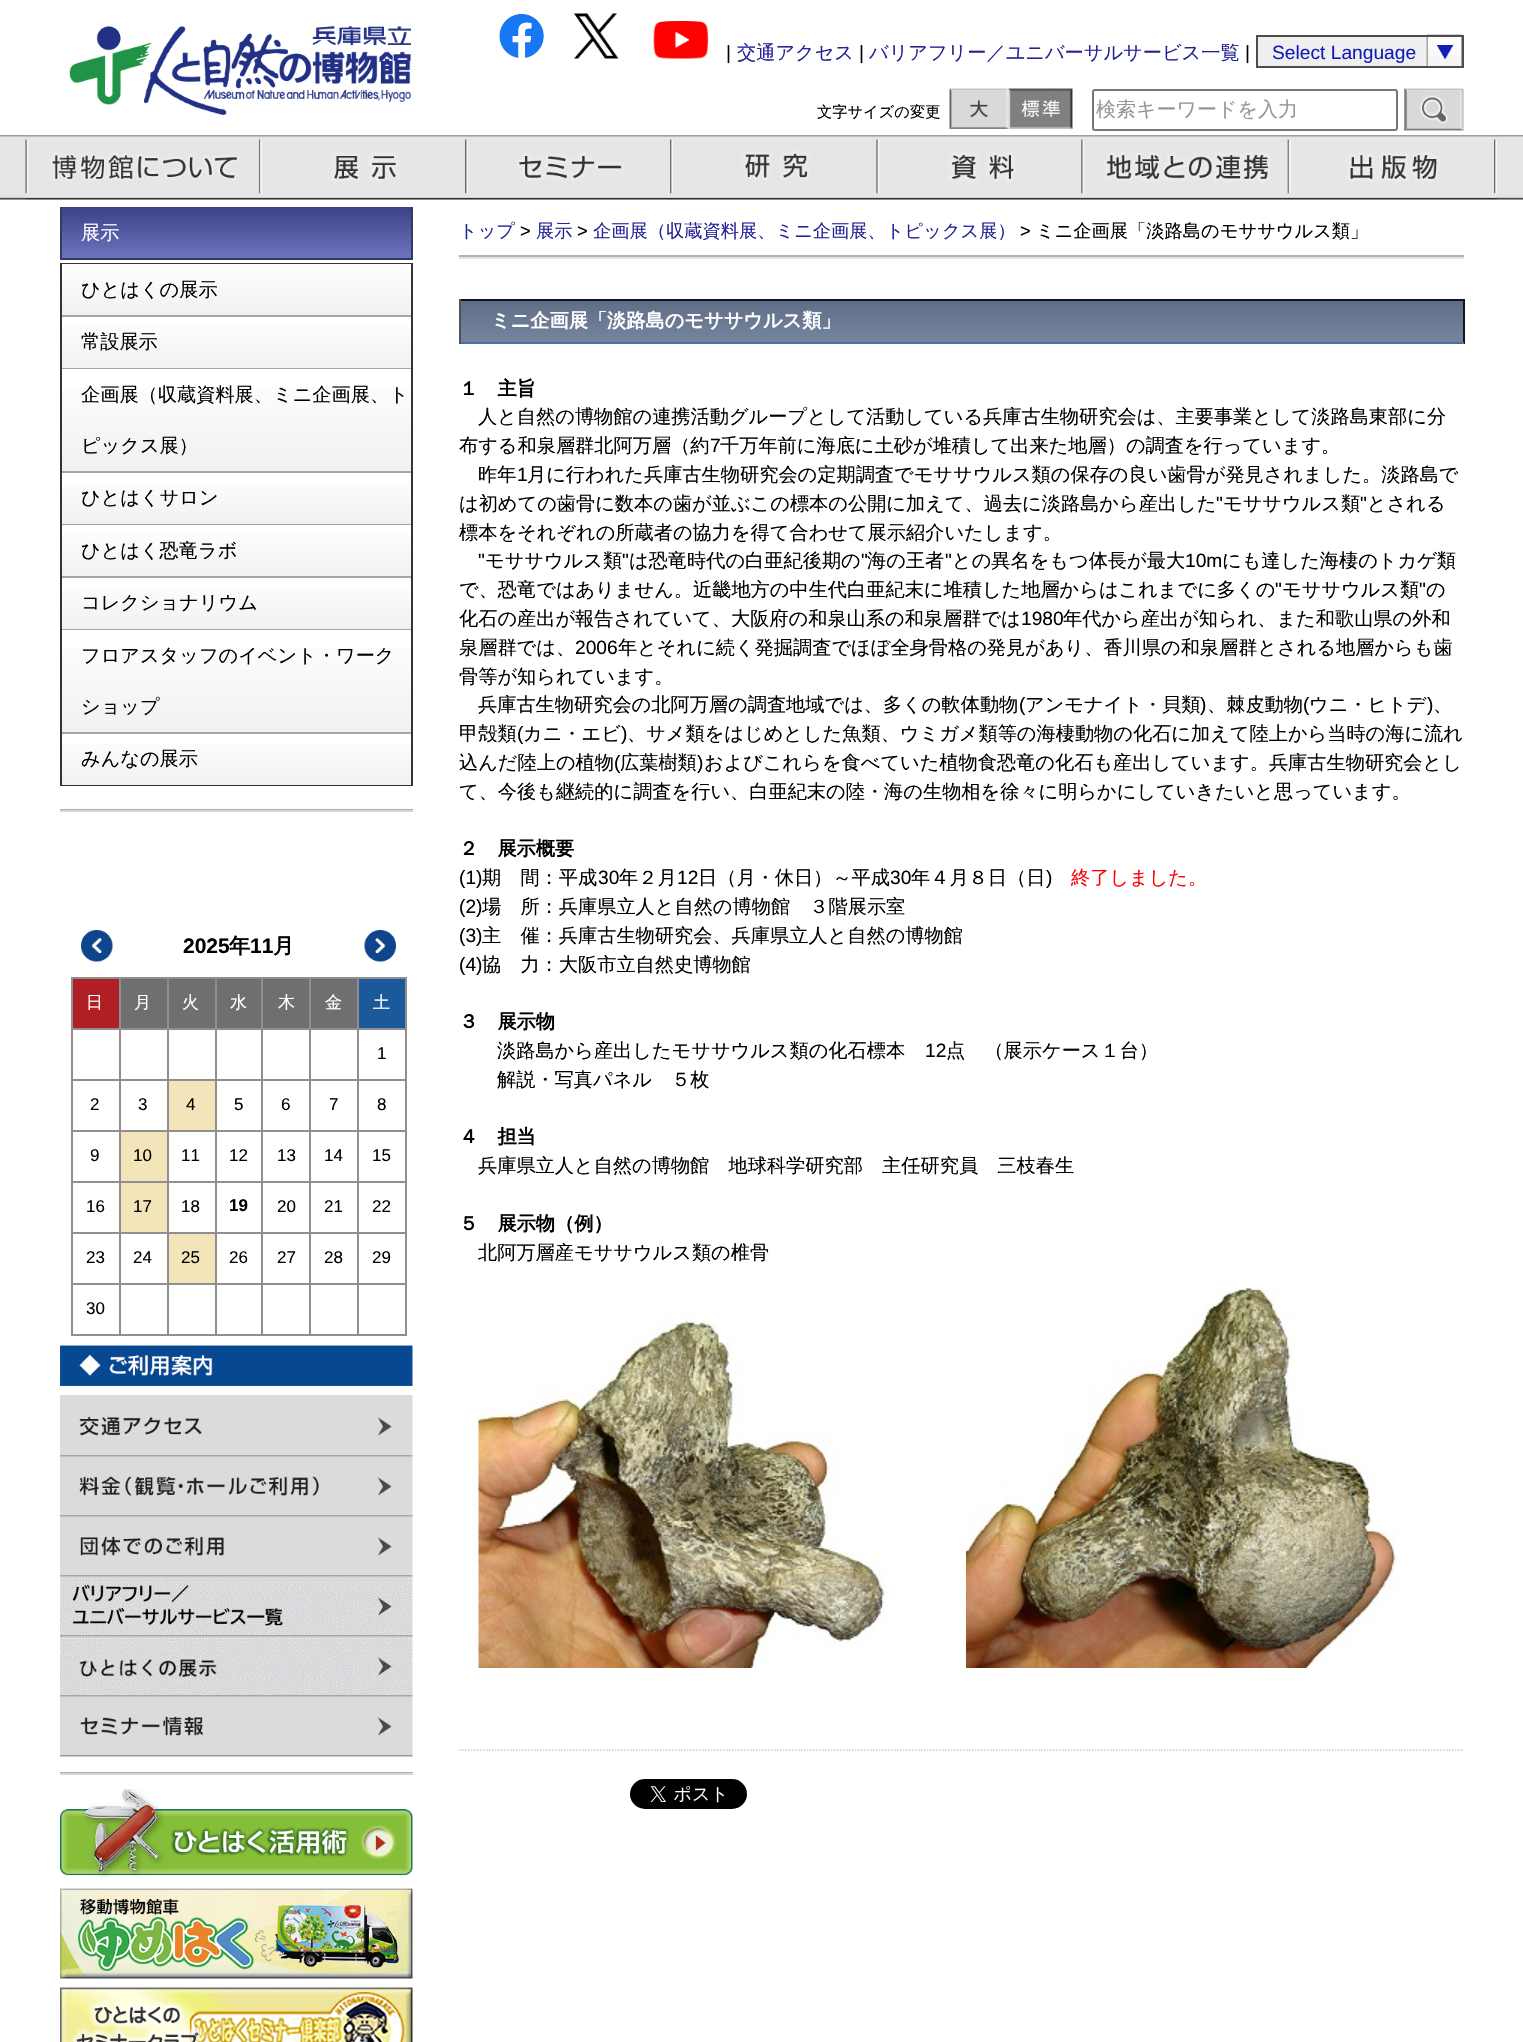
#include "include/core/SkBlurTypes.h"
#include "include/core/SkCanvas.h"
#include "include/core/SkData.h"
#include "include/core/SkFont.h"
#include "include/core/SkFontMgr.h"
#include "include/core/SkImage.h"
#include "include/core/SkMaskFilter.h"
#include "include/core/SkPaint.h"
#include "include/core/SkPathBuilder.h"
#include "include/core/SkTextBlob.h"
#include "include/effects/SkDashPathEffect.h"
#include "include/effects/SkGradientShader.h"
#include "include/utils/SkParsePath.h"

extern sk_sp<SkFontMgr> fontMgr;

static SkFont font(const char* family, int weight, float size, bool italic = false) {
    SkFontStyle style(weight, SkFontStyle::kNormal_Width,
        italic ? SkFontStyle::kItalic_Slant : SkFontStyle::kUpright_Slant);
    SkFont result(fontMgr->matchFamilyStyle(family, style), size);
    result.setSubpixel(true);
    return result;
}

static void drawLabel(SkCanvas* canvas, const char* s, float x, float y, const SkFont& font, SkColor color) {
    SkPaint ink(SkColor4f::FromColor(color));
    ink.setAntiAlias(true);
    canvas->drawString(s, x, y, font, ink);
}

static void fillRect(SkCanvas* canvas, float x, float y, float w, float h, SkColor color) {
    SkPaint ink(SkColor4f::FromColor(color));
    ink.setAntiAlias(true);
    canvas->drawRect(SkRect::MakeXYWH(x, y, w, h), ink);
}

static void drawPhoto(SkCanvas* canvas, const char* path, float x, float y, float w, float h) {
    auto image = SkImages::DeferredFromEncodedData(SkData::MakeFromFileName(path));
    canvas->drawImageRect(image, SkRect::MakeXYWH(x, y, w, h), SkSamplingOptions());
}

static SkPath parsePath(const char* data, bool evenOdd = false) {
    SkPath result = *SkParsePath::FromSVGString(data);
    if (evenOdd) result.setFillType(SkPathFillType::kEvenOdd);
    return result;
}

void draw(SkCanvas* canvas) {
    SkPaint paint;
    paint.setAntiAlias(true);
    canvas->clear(0xFFFFFFFF);
    drawPhoto(canvas, "assets/img1.png", 69, 26, 342, 89);
    drawPhoto(canvas, "assets/img2.png", 499, 14, 45, 44);
    drawPhoto(canvas, "assets/img3.png", 573, 13, 46, 46);
    drawPhoto(canvas, "assets/img4.png", 653, 21, 56, 38);
    SkFont font1 = font("Liberation Sans", 400, 19.2f);
    drawLabel(canvas, "|", 726, 59, font1, 0xFF000000);
    SkFont font2 = font("WenQuanYi Zen Hei", 500, 19.2f);
    drawLabel(canvas, "交通アクセス", 737, 59, font2, 0xFF232396);
    drawLabel(canvas, "|", 859, 59, font1, 0xFF000000);
    drawLabel(canvas, "バリアフリー／ユニバーサルサービス一覧", 869, 59, font2, 0xFF232396);
    drawLabel(canvas, "|", 1245, 59, font1, 0xFF000000);
    fillRect(canvas, 1258, 37, 169, 29, 0xFFEFEFEF);
    drawPhoto(canvas, "assets/img5.png", 1426, 34, 37, 32);
    paint.setStroke(true);
    paint.setStrokeWidth(2);
    paint.setColor(0xFF4D4D4D);
    canvas->drawRect(SkRect::MakeXYWH(1257, 36, 206, 31), paint);
    drawLabel(canvas, "Select Language", 1272, 59, font1, 0xFF111DB7);
    SkFont font3 = font("WenQuanYi Zen Hei", 500, 15.25f);
    drawLabel(canvas, "文字サイズの変更", 817, 117, font3, 0xFF000000);
    drawPhoto(canvas, "assets/img6.png", 949, 88, 59, 41);
    drawPhoto(canvas, "assets/img7.png", 1008, 88, 65, 41);
    paint.setColor(0xFF767676);
    canvas->drawRoundRect(SkRect::MakeXYWH(1093, 90, 304, 40), 2, 2, paint);
    SkFont font4 = font("WenQuanYi Zen Hei", 500, 20);
    drawLabel(canvas, "検索キーワードを入力", 1096, 116, font4, 0xFF969696);
    drawPhoto(canvas, "assets/img8.png", 1404, 88, 60, 43);
    drawPhoto(canvas, "assets/img9.png", 0, 135, 1523, 65);
    drawPhoto(canvas, "assets/img10.png", 25, 135, 236, 65);
    drawPhoto(canvas, "assets/img11.png", 261, 135, 207, 65);
    drawPhoto(canvas, "assets/img12.png", 468, 135, 206, 65);
    drawPhoto(canvas, "assets/img13.png", 673, 135, 208, 65);
    drawPhoto(canvas, "assets/img14.png", 880, 135, 206, 65);
    drawPhoto(canvas, "assets/img15.png", 1086, 135, 207, 65);
    drawPhoto(canvas, "assets/img16.png", 1293, 135, 204, 65);
    paint.setStroke(false);
    {
        const SkColor colors[] = {0xFF3C4286, 0xFF545BA3, 0xFF6B74BE};
        const float stops[] = {0, 0.5f, 1};
        const SkPoint ends[] = {{236, 207}, {236, 258}};
        paint.setShader(SkGradientShader::MakeLinear(ends, colors, stops, 3, SkTileMode::kClamp));
        paint.setAlpha(255);
    }
    canvas->drawRect(SkRect::MakeXYWH(62, 207, 349, 51), paint);
    fillRect(canvas, 411, 207, 2, 53, 0xFF353A63);
    fillRect(canvas, 60, 258, 353, 2, 0xFF353A63);
    fillRect(canvas, 60, 207, 2, 53, 0xFF353A63);
    drawLabel(canvas, "展示", 81, 239, font2, 0xFFFFFFFF);
    paint.setStroke(true);
    paint.setShader(nullptr);
    paint.setColor(0xFF343434);
    canvas->drawRect(SkRect::MakeXYWH(61, 264, 351, 521), paint);
    paint.setStroke(false);
    {
        const SkColor colors[] = {0xFFFFFFFF, 0xFFF1F1F1};
        const float stops[] = {0, 1};
        const SkPoint ends[] = {{236, 264}, {236, 315}};
        paint.setShader(SkGradientShader::MakeLinear(ends, colors, stops, 2, SkTileMode::kClamp));
        paint.setAlpha(255);
    }
    canvas->drawRect(SkRect::MakeXYWH(62, 264, 349, 51), paint);
    fillRect(canvas, 62, 315, 349, 2, 0xFFA6A6A6);
    drawLabel(canvas, "ひとはくの展示", 81, 296, font2, 0xFF000000);
    {
        const SkColor colors[] = {0xFFFFFFFF, 0xFFF1F1F1};
        const float stops[] = {0, 1};
        const SkPoint ends[] = {{236, 317}, {236, 368}};
        paint.setShader(SkGradientShader::MakeLinear(ends, colors, stops, 2, SkTileMode::kClamp));
        paint.setAlpha(255);
    }
    canvas->drawRect(SkRect::MakeXYWH(62, 326, 349, 42), paint);
    fillRect(canvas, 62, 368, 349, 1, 0xFFA6A6A6);
    drawLabel(canvas, "常設展示", 81, 348, font2, 0xFF000000);
    {
        const SkColor colors[] = {0xFFFFFFFF, 0xFFF1F1F1};
        const float stops[] = {0, 1};
        const SkPoint ends[] = {{236, 369}, {236, 471}};
        paint.setShader(SkGradientShader::MakeLinear(ends, colors, stops, 2, SkTileMode::kClamp));
        paint.setAlpha(255);
    }
    canvas->drawRect(SkRect::MakeXYWH(62, 387, 349, 84), paint);
    fillRect(canvas, 62, 471, 349, 2, 0xFFA6A6A6);
    drawLabel(canvas, "企画展（収蔵資料展、ミニ企画展、ト", 81, 401, font2, 0xFF000000);
    drawLabel(canvas, "ピックス展）", 81, 452, font2, 0xFF000000);
    {
        const SkColor colors[] = {0xFFFFFFFF, 0xFFF1F1F1};
        const float stops[] = {0, 1};
        const SkPoint ends[] = {{236, 473}, {236, 524}};
        paint.setShader(SkGradientShader::MakeLinear(ends, colors, stops, 2, SkTileMode::kClamp));
        paint.setAlpha(255);
    }
    canvas->drawRect(SkRect::MakeXYWH(62, 482, 349, 42), paint);
    fillRect(canvas, 62, 524, 349, 1, 0xFFA6A6A6);
    drawLabel(canvas, "ひとはくサロン", 81, 504, font2, 0xFF000000);
    {
        const SkColor colors[] = {0xFFFFFFFF, 0xFFF1F1F1};
        const float stops[] = {0, 1};
        const SkPoint ends[] = {{236, 525}, {236, 576}};
        paint.setShader(SkGradientShader::MakeLinear(ends, colors, stops, 2, SkTileMode::kClamp));
        paint.setAlpha(255);
    }
    canvas->drawRect(SkRect::MakeXYWH(62, 534, 349, 42), paint);
    fillRect(canvas, 62, 576, 349, 2, 0xFFA6A6A6);
    drawLabel(canvas, "ひとはく恐竜ラボ", 81, 557, font2, 0xFF000000);
    {
        const SkColor colors[] = {0xFFFFFFFF, 0xFFF1F1F1};
        const float stops[] = {0, 1};
        const SkPoint ends[] = {{236, 578}, {236, 629}};
        paint.setShader(SkGradientShader::MakeLinear(ends, colors, stops, 2, SkTileMode::kClamp));
        paint.setAlpha(255);
    }
    canvas->drawRect(SkRect::MakeXYWH(62, 587, 349, 42), paint);
    fillRect(canvas, 62, 629, 349, 1, 0xFFA6A6A6);
    drawLabel(canvas, "コレクショナリウム", 81, 609, font2, 0xFF000000);
    {
        const SkColor colors[] = {0xFFFFFFFF, 0xFFF1F1F1};
        const float stops[] = {0, 1};
        const SkPoint ends[] = {{236, 630}, {236, 732}};
        paint.setShader(SkGradientShader::MakeLinear(ends, colors, stops, 2, SkTileMode::kClamp));
        paint.setAlpha(255);
    }
    canvas->drawRect(SkRect::MakeXYWH(62, 648, 349, 84), paint);
    fillRect(canvas, 62, 732, 349, 2, 0xFFA6A6A6);
    drawLabel(canvas, "フロアスタッフのイベント・ワーク", 81, 662, font2, 0xFF000000);
    drawLabel(canvas, "ショップ", 81, 713, font2, 0xFF000000);
    {
        const SkColor colors[] = {0xFFFFFFFF, 0xFFF1F1F1};
        const float stops[] = {0, 1};
        const SkPoint ends[] = {{236, 734}, {236, 785}};
        paint.setShader(SkGradientShader::MakeLinear(ends, colors, stops, 2, SkTileMode::kClamp));
        paint.setAlpha(255);
    }
    canvas->drawRect(SkRect::MakeXYWH(62, 743, 349, 42), paint);
    drawLabel(canvas, "みんなの展示", 81, 765, font2, 0xFF000000);
    fillRect(canvas, 60, 809, 353, 1, 0xFFAEAEAE);
    fillRect(canvas, 60, 810, 353, 2, 0xFFD6D6D6);
    drawPhoto(canvas, "assets/img17.png", 81, 930, 32, 32);
    SkFont font5 = font("Liberation Sans", 700, 21);
    drawLabel(canvas, "2025", 183, 953, font5, 0xFF000000);
    SkFont font6 = font("WenQuanYi Zen Hei", 700, 21);
    drawLabel(canvas, "年", 229, 953, font6, 0xFF000000);
    drawLabel(canvas, "11", 250, 953, font5, 0xFF000000);
    drawLabel(canvas, "月", 273, 953, font6, 0xFF000000);
    drawPhoto(canvas, "assets/img18.png", 364, 930, 32, 32);
    fillRect(canvas, 73, 979, 46, 49, 0xFFB01F23);
    fillRect(canvas, 357, 977, 50, 2, 0xFF8F8F8F);
    fillRect(canvas, 357, 1028, 50, 2, 0xFF8F8F8F);
    fillRect(canvas, 357, 1079, 50, 2, 0xFF8F8F8F);
    fillRect(canvas, 357, 1130, 50, 2, 0xFF8F8F8F);
    fillRect(canvas, 357, 1181, 50, 2, 0xFF8F8F8F);
    fillRect(canvas, 357, 1232, 50, 2, 0xFF8F8F8F);
    fillRect(canvas, 357, 1283, 50, 2, 0xFF8F8F8F);
    fillRect(canvas, 405, 1283, 2, 52, 0xFF8F8F8F);
    fillRect(canvas, 357, 1334, 50, 2, 0xFF8F8F8F);
    fillRect(canvas, 357, 1283, 2, 52, 0xFF8F8F8F);
    fillRect(canvas, 309, 1283, 50, 2, 0xFF8F8F8F);
    fillRect(canvas, 357, 1232, 2, 52, 0xFF8F8F8F);
    fillRect(canvas, 309, 1232, 50, 2, 0xFF8F8F8F);
    fillRect(canvas, 357, 1181, 2, 52, 0xFF8F8F8F);
    fillRect(canvas, 309, 1181, 50, 2, 0xFF8F8F8F);
    fillRect(canvas, 357, 1130, 2, 52, 0xFF8F8F8F);
    fillRect(canvas, 309, 1130, 50, 2, 0xFF8F8F8F);
    fillRect(canvas, 357, 1079, 2, 52, 0xFF8F8F8F);
    fillRect(canvas, 309, 1079, 50, 2, 0xFF8F8F8F);
    fillRect(canvas, 357, 1028, 2, 52, 0xFF8F8F8F);
    fillRect(canvas, 309, 1028, 50, 2, 0xFF8F8F8F);
    fillRect(canvas, 357, 977, 2, 52, 0xFF8F8F8F);
    fillRect(canvas, 309, 977, 50, 2, 0xFF8F8F8F);
    fillRect(canvas, 309, 1334, 50, 2, 0xFF8F8F8F);
    fillRect(canvas, 309, 1283, 2, 52, 0xFF8F8F8F);
    fillRect(canvas, 261, 1283, 50, 2, 0xFF8F8F8F);
    fillRect(canvas, 309, 1232, 2, 52, 0xFF8F8F8F);
    fillRect(canvas, 261, 1232, 50, 2, 0xFF8F8F8F);
    fillRect(canvas, 309, 1181, 2, 52, 0xFF8F8F8F);
    fillRect(canvas, 261, 1181, 50, 2, 0xFF8F8F8F);
    fillRect(canvas, 309, 1130, 2, 52, 0xFF8F8F8F);
    fillRect(canvas, 261, 1130, 50, 2, 0xFF8F8F8F);
    fillRect(canvas, 309, 1079, 2, 52, 0xFF8F8F8F);
    fillRect(canvas, 261, 1079, 50, 2, 0xFF8F8F8F);
    fillRect(canvas, 309, 1028, 2, 52, 0xFF8F8F8F);
    fillRect(canvas, 261, 1028, 50, 2, 0xFF8F8F8F);
    fillRect(canvas, 309, 977, 2, 52, 0xFF8F8F8F);
    fillRect(canvas, 261, 977, 50, 2, 0xFF8F8F8F);
    fillRect(canvas, 261, 1334, 50, 2, 0xFF8F8F8F);
    fillRect(canvas, 261, 1283, 2, 52, 0xFF8F8F8F);
    fillRect(canvas, 215, 1283, 48, 2, 0xFF8F8F8F);
    fillRect(canvas, 261, 1232, 2, 52, 0xFF8F8F8F);
    fillRect(canvas, 215, 1232, 48, 2, 0xFF8F8F8F);
    fillRect(canvas, 261, 1181, 2, 52, 0xFF8F8F8F);
    fillRect(canvas, 215, 1181, 48, 2, 0xFF8F8F8F);
    fillRect(canvas, 261, 1130, 2, 52, 0xFF8F8F8F);
    fillRect(canvas, 215, 1130, 48, 2, 0xFF8F8F8F);
    fillRect(canvas, 261, 1079, 2, 52, 0xFF8F8F8F);
    fillRect(canvas, 215, 1079, 48, 2, 0xFF8F8F8F);
    fillRect(canvas, 261, 1028, 2, 52, 0xFF8F8F8F);
    fillRect(canvas, 215, 1028, 48, 2, 0xFF8F8F8F);
    fillRect(canvas, 261, 977, 2, 52, 0xFF8F8F8F);
    fillRect(canvas, 215, 977, 48, 2, 0xFF8F8F8F);
    fillRect(canvas, 215, 1334, 48, 2, 0xFF8F8F8F);
    fillRect(canvas, 215, 1283, 2, 52, 0xFF8F8F8F);
    fillRect(canvas, 167, 1283, 49, 2, 0xFF8F8F8F);
    fillRect(canvas, 215, 1232, 2, 52, 0xFF8F8F8F);
    fillRect(canvas, 167, 1232, 49, 2, 0xFF8F8F8F);
    fillRect(canvas, 215, 1181, 2, 52, 0xFF8F8F8F);
    fillRect(canvas, 167, 1181, 49, 2, 0xFF8F8F8F);
    fillRect(canvas, 215, 1130, 2, 52, 0xFF8F8F8F);
    fillRect(canvas, 167, 1130, 49, 2, 0xFF8F8F8F);
    fillRect(canvas, 215, 1079, 2, 52, 0xFF8F8F8F);
    fillRect(canvas, 167, 1079, 49, 2, 0xFF8F8F8F);
    fillRect(canvas, 215, 1028, 2, 52, 0xFF8F8F8F);
    fillRect(canvas, 167, 1028, 49, 2, 0xFF8F8F8F);
    fillRect(canvas, 215, 977, 2, 52, 0xFF8F8F8F);
    fillRect(canvas, 167, 977, 49, 2, 0xFF8F8F8F);
    fillRect(canvas, 167, 1334, 49, 2, 0xFF8F8F8F);
    fillRect(canvas, 167, 1283, 2, 52, 0xFF8F8F8F);
    fillRect(canvas, 119, 1283, 49, 2, 0xFF8F8F8F);
    fillRect(canvas, 167, 1232, 2, 52, 0xFF8F8F8F);
    fillRect(canvas, 119, 1232, 49, 2, 0xFF8F8F8F);
    fillRect(canvas, 167, 1181, 2, 52, 0xFF8F8F8F);
    fillRect(canvas, 119, 1181, 49, 2, 0xFF8F8F8F);
    fillRect(canvas, 167, 1130, 2, 52, 0xFF8F8F8F);
    fillRect(canvas, 119, 1130, 49, 2, 0xFF8F8F8F);
    fillRect(canvas, 167, 1079, 2, 52, 0xFF8F8F8F);
    fillRect(canvas, 119, 1079, 49, 2, 0xFF8F8F8F);
    fillRect(canvas, 167, 1028, 2, 52, 0xFF8F8F8F);
    fillRect(canvas, 119, 1028, 49, 2, 0xFF8F8F8F);
    fillRect(canvas, 167, 977, 2, 52, 0xFF8F8F8F);
    fillRect(canvas, 119, 977, 49, 2, 0xFF8F8F8F);
    fillRect(canvas, 119, 1334, 49, 2, 0xFF8F8F8F);
    fillRect(canvas, 119, 1283, 2, 52, 0xFF8F8F8F);
    fillRect(canvas, 71, 1283, 49, 2, 0xFF8F8F8F);
    fillRect(canvas, 119, 1232, 2, 52, 0xFF8F8F8F);
    fillRect(canvas, 71, 1232, 49, 2, 0xFF8F8F8F);
    fillRect(canvas, 119, 1181, 2, 52, 0xFF8F8F8F);
    fillRect(canvas, 71, 1181, 49, 2, 0xFF8F8F8F);
    fillRect(canvas, 119, 1130, 2, 52, 0xFF8F8F8F);
    fillRect(canvas, 71, 1130, 49, 2, 0xFF8F8F8F);
    fillRect(canvas, 119, 1079, 2, 52, 0xFF8F8F8F);
    fillRect(canvas, 71, 1079, 49, 2, 0xFF8F8F8F);
    fillRect(canvas, 119, 1028, 2, 52, 0xFF8F8F8F);
    fillRect(canvas, 71, 1028, 49, 2, 0xFF8F8F8F);
    fillRect(canvas, 119, 977, 2, 52, 0xFF8F8F8F);
    fillRect(canvas, 71, 977, 49, 2, 0xFF8F8F8F);
    fillRect(canvas, 71, 1334, 49, 2, 0xFF8F8F8F);
    fillRect(canvas, 71, 1283, 2, 52, 0xFF8F8F8F);
    fillRect(canvas, 71, 1232, 2, 52, 0xFF8F8F8F);
    fillRect(canvas, 71, 1181, 2, 52, 0xFF8F8F8F);
    fillRect(canvas, 71, 1130, 2, 52, 0xFF8F8F8F);
    fillRect(canvas, 71, 1079, 2, 52, 0xFF8F8F8F);
    fillRect(canvas, 71, 1028, 2, 52, 0xFF8F8F8F);
    fillRect(canvas, 71, 977, 2, 52, 0xFF8F8F8F);
    SkFont font7 = font("WenQuanYi Zen Hei", 500, 17);
    drawLabel(canvas, "日", 86, 1008, font7, 0xFFFFFFFF);
    fillRect(canvas, 121, 979, 46, 49, 0xFF706F6F);
    drawLabel(canvas, "月", 134, 1008, font7, 0xFFFFFFFF);
    fillRect(canvas, 169, 979, 46, 49, 0xFF706F6F);
    drawLabel(canvas, "火", 182, 1008, font7, 0xFFFFFFFF);
    fillRect(canvas, 217, 979, 44, 49, 0xFF706F6F);
    drawLabel(canvas, "水", 230, 1008, font7, 0xFFFFFFFF);
    fillRect(canvas, 263, 979, 46, 49, 0xFF706F6F);
    drawLabel(canvas, "木", 278, 1008, font7, 0xFFFFFFFF);
    fillRect(canvas, 311, 979, 46, 49, 0xFF706F6F);
    drawLabel(canvas, "金", 325, 1008, font7, 0xFFFFFFFF);
    fillRect(canvas, 359, 979, 46, 49, 0xFF1C599A);
    fillRect(canvas, 405, 1232, 2, 52, 0xFF8F8F8F);
    fillRect(canvas, 405, 1181, 2, 52, 0xFF8F8F8F);
    fillRect(canvas, 405, 1130, 2, 52, 0xFF8F8F8F);
    fillRect(canvas, 405, 1079, 2, 52, 0xFF8F8F8F);
    fillRect(canvas, 405, 1028, 2, 52, 0xFF8F8F8F);
    fillRect(canvas, 405, 977, 2, 52, 0xFF8F8F8F);
    drawLabel(canvas, "土", 373, 1008, font7, 0xFFFFFFFF);
    SkFont font8 = font("Liberation Sans", 400, 17);
    drawLabel(canvas, "1", 377, 1059, font8, 0xFF000000);
    drawLabel(canvas, "2", 90, 1110, font8, 0xFF000000);
    drawLabel(canvas, "3", 138, 1110, font8, 0xFF000000);
    fillRect(canvas, 169, 1081, 46, 49, 0xFFF3E4BA);
    drawLabel(canvas, "4", 186, 1110, font8, 0xFF000000);
    drawLabel(canvas, "5", 234, 1110, font8, 0xFF000000);
    drawLabel(canvas, "6", 281, 1110, font8, 0xFF000000);
    drawLabel(canvas, "7", 329, 1110, font8, 0xFF000000);
    drawLabel(canvas, "8", 377, 1110, font8, 0xFF000000);
    drawLabel(canvas, "9", 90, 1161, font8, 0xFF000000);
    fillRect(canvas, 121, 1132, 46, 49, 0xFFF3E4BA);
    drawLabel(canvas, "10", 133, 1161, font8, 0xFF000000);
    drawLabel(canvas, "11", 181, 1161, font8, 0xFF000000);
    drawLabel(canvas, "12", 229, 1161, font8, 0xFF000000);
    drawLabel(canvas, "13", 277, 1161, font8, 0xFF000000);
    drawLabel(canvas, "14", 324, 1161, font8, 0xFF000000);
    drawLabel(canvas, "15", 372, 1161, font8, 0xFF000000);
    drawLabel(canvas, "16", 86, 1212, font8, 0xFF000000);
    fillRect(canvas, 121, 1183, 46, 49, 0xFFF3E4BA);
    drawLabel(canvas, "17", 133, 1212, font8, 0xFF000000);
    drawLabel(canvas, "18", 181, 1212, font8, 0xFF000000);
    SkFont font9 = font("Liberation Sans", 700, 17);
    drawLabel(canvas, "19", 229, 1211, font9, 0xFF000000);
    drawLabel(canvas, "20", 277, 1212, font8, 0xFF000000);
    drawLabel(canvas, "21", 324, 1212, font8, 0xFF000000);
    drawLabel(canvas, "22", 372, 1212, font8, 0xFF000000);
    drawLabel(canvas, "23", 86, 1263, font8, 0xFF000000);
    drawLabel(canvas, "24", 133, 1263, font8, 0xFF000000);
    fillRect(canvas, 169, 1234, 46, 49, 0xFFF3E4BA);
    drawLabel(canvas, "25", 181, 1263, font8, 0xFF000000);
    drawLabel(canvas, "26", 229, 1263, font8, 0xFF000000);
    drawLabel(canvas, "27", 277, 1263, font8, 0xFF000000);
    drawLabel(canvas, "28", 324, 1263, font8, 0xFF000000);
    drawLabel(canvas, "29", 372, 1263, font8, 0xFF000000);
    drawLabel(canvas, "30", 86, 1314, font8, 0xFF000000);
    drawPhoto(canvas, "assets/img19.png", 60, 1345, 353, 41);
    drawPhoto(canvas, "assets/img20.png", 60, 1395, 353, 60);
    drawPhoto(canvas, "assets/img21.png", 60, 1455, 353, 60);
    drawPhoto(canvas, "assets/img22.png", 60, 1515, 353, 60);
    drawPhoto(canvas, "assets/img23.png", 60, 1575, 353, 60);
    drawPhoto(canvas, "assets/img24.png", 60, 1635, 353, 60);
    drawPhoto(canvas, "assets/img25.png", 60, 1695, 353, 60);
    drawPhoto(canvas, "assets/img26.png", 60, 1755, 353, 2);
    fillRect(canvas, 60, 1772, 353, 1, 0xFFAEAEAE);
    fillRect(canvas, 60, 1773, 353, 2, 0xFFD6D6D6);
    drawPhoto(canvas, "assets/img27.png", 60, 1789, 353, 89);
    drawPhoto(canvas, "assets/img28.png", 60, 1888, 353, 91);
    drawPhoto(canvas, "assets/img29.png", 60, 1987, 353, 55);
    SkFont font10 = font("WenQuanYi Zen Hei", 500, 18.25f);
    drawLabel(canvas, "トップ", 459, 237, font10, 0xFF232396);
    SkFont font11 = font("Liberation Sans", 400, 18.25f);
    drawLabel(canvas, ">", 520, 237, font11, 0xFF000000);
    drawLabel(canvas, "展示", 536, 237, font10, 0xFF232396);
    drawLabel(canvas, ">", 577, 237, font11, 0xFF000000);
    drawLabel(canvas, "企画展（収蔵資料展、ミニ企画展、トピックス展）", 593, 237, font10, 0xFF232396);
    drawLabel(canvas, ">", 1020, 237, font11, 0xFF000000);
    drawLabel(canvas, "ミニ企画展「淡路島のモササウルス類」", 1036, 237, font10, 0xFF000000);
    fillRect(canvas, 459, 255, 1005, 2, 0xFFB2B2B2);
    fillRect(canvas, 459, 257, 1005, 2, 0xFFE5E5E5);
    {
        const SkColor colors[] = {0xFF5F6D85, 0xFF76859F};
        const float stops[] = {0, 1};
        const SkPoint ends[] = {{962, 300}, {962, 342}};
        paint.setShader(SkGradientShader::MakeLinear(ends, colors, stops, 2, SkTileMode::kClamp));
        paint.setAlpha(255);
    }
    canvas->drawRect(SkRect::MakeXYWH(461, 301, 1002, 41), paint);
    fillRect(canvas, 459, 299, 1005, 2, 0xFF0F151F);
    fillRect(canvas, 1463, 299, 2, 45, 0xFF0F151F);
    fillRect(canvas, 459, 342, 1005, 2, 0xFF4D7098);
    fillRect(canvas, 459, 299, 2, 45, 0xFF525252);
    SkFont font12 = font("WenQuanYi Zen Hei", 700, 19.2f);
    drawLabel(canvas, "ミニ企画展「淡路島のモササウルス類」", 491, 327, font12, 0xFFFFFFFF);
    drawLabel(canvas, "１　主旨", 459, 395, font12, 0xFF000000);
    drawLabel(canvas, "人と自然の博物館の連携活動グループとして活動している兵庫古生物研究会は、主要事業として淡路島東部に分", 478, 423, font2, 0xFF000000);
    drawLabel(canvas, "布する和泉層群北阿万層（約", 459, 452, font2, 0xFF000000);
    drawLabel(canvas, "7", 710, 452, font1, 0xFF000000);
    drawLabel(canvas, "千万年前に海底に土砂が堆積して出来た地層）の調査を行っています。", 720, 452, font2, 0xFF000000);
    drawLabel(canvas, "昨年", 478, 481, font2, 0xFF000000);
    drawLabel(canvas, "1", 517, 481, font1, 0xFF000000);
    drawLabel(canvas, "月に行われた兵庫古生物研究会の定期調査でモササウルス類の保存の良い歯骨が発見されました。淡路島で", 527, 481, font2, 0xFF000000);
    drawLabel(canvas, "は初めての歯骨に数本の歯が並ぶこの標本の公開に加えて、過去に淡路島から産出した", 459, 510, font2, 0xFF000000);
    drawLabel(canvas, "\"", 1216, 510, font1, 0xFF000000);
    drawLabel(canvas, "モササウルス類", 1223, 510, font2, 0xFF000000);
    drawLabel(canvas, "\"", 1360, 510, font1, 0xFF000000);
    drawLabel(canvas, "とされる", 1367, 510, font2, 0xFF000000);
    drawLabel(canvas, "標本をそれぞれの所蔵者の協力を得て合わせて展示紹介いたします。", 459, 539, font2, 0xFF000000);
    drawLabel(canvas, "\"", 478, 567, font1, 0xFF000000);
    drawLabel(canvas, "モササウルス類", 485, 567, font2, 0xFF000000);
    drawLabel(canvas, "\"", 622, 567, font1, 0xFF000000);
    drawLabel(canvas, "は恐竜時代の白亜紀後期の", 629, 567, font2, 0xFF000000);
    drawLabel(canvas, "\"", 861, 567, font1, 0xFF000000);
    drawLabel(canvas, "海の王者", 867, 567, font2, 0xFF000000);
    drawLabel(canvas, "\"", 945, 567, font1, 0xFF000000);
    drawLabel(canvas, "との異名をもつ体長が最大", 952, 567, font2, 0xFF000000);
    drawLabel(canvas, "10m", 1185, 567, font1, 0xFF000000);
    drawLabel(canvas, "にも達した海棲のトカゲ類", 1222, 567, font2, 0xFF000000);
    drawLabel(canvas, "で、恐竜ではありません。近畿地方の中生代白亜紀末に堆積した地層からはこれまでに多くの", 459, 596, font2, 0xFF000000);
    drawLabel(canvas, "\"", 1275, 596, font1, 0xFF000000);
    drawLabel(canvas, "モササウルス類", 1282, 596, font2, 0xFF000000);
    drawLabel(canvas, "\"", 1419, 596, font1, 0xFF000000);
    drawLabel(canvas, "の", 1426, 596, font2, 0xFF000000);
    drawLabel(canvas, "化石の産出が報告されていて、大阪府の和泉山系の和泉層群では", 459, 625, font2, 0xFF000000);
    drawLabel(canvas, "1980", 1021, 625, font1, 0xFF000000);
    drawLabel(canvas, "年代から産出が知られ、また和歌山県の外和", 1063, 625, font2, 0xFF000000);
    drawLabel(canvas, "泉層群では、", 459, 654, font2, 0xFF000000);
    drawLabel(canvas, "2006", 575, 654, font1, 0xFF000000);
    drawLabel(canvas, "年とそれに続く発掘調査でほぼ全身骨格の発見があり、香川県の和泉層群とされる地層からも歯", 618, 654, font2, 0xFF000000);
    drawLabel(canvas, "骨等が知られています。", 459, 683, font2, 0xFF000000);
    drawLabel(canvas, "兵庫古生物研究会の北阿万層の調査地域では、多くの軟体動物", 478, 711, font2, 0xFF000000);
    drawLabel(canvas, "(", 1019, 711, font1, 0xFF000000);
    drawLabel(canvas, "アンモナイト・貝類", 1025, 711, font2, 0xFF000000);
    drawLabel(canvas, ")", 1200, 711, font1, 0xFF000000);
    drawLabel(canvas, "、棘皮動物", 1207, 711, font2, 0xFF000000);
    drawLabel(canvas, "(", 1303, 711, font1, 0xFF000000);
    drawLabel(canvas, "ウニ・ヒトデ", 1309, 711, font2, 0xFF000000);
    drawLabel(canvas, ")", 1427, 711, font1, 0xFF000000);
    drawLabel(canvas, "、", 1433, 711, font2, 0xFF000000);
    drawLabel(canvas, "甲殻類", 459, 740, font2, 0xFF000000);
    drawLabel(canvas, "(", 517, 740, font1, 0xFF000000);
    drawLabel(canvas, "カニ・エビ", 523, 740, font2, 0xFF000000);
    drawLabel(canvas, ")", 621, 740, font1, 0xFF000000);
    drawLabel(canvas, "、サメ類をはじめとした魚類、ウミガメ類等の海棲動物の化石に加えて陸上から当時の海に流れ", 627, 740, font2, 0xFF000000);
    drawLabel(canvas, "込んだ陸上の植物", 459, 769, font2, 0xFF000000);
    drawLabel(canvas, "(", 614, 769, font1, 0xFF000000);
    drawLabel(canvas, "広葉樹類", 620, 769, font2, 0xFF000000);
    drawLabel(canvas, ")", 697, 769, font1, 0xFF000000);
    drawLabel(canvas, "およびこれらを食べていた植物食恐竜の化石も産出しています。兵庫古生物研究会とし", 704, 769, font2, 0xFF000000);
    drawLabel(canvas, "て、今後も継続的に調査を行い、白亜紀末の陸・海の生物相を徐々に明らかにしていきたいと思っています。", 459, 798, font2, 0xFF000000);
    drawLabel(canvas, "２　展示概要", 459, 855, font12, 0xFF000000);
    drawLabel(canvas, "(1)", 459, 884, font1, 0xFF000000);
    drawLabel(canvas, "期　間：平成", 482, 884, font2, 0xFF000000);
    drawLabel(canvas, "30", 598, 884, font1, 0xFF000000);
    drawLabel(canvas, "年２月", 619, 884, font2, 0xFF000000);
    drawLabel(canvas, "12", 677, 884, font1, 0xFF000000);
    drawLabel(canvas, "日（月・休日）～平成", 698, 884, font2, 0xFF000000);
    drawLabel(canvas, "30", 890, 884, font1, 0xFF000000);
    drawLabel(canvas, "年４月８日（日", 911, 884, font2, 0xFF000000);
    drawLabel(canvas, ")", 1046, 884, font1, 0xFF000000);
    drawLabel(canvas, "終了しました。", 1071, 884, font2, 0xFFFF0000);
    drawLabel(canvas, "(2)", 459, 913, font1, 0xFF000000);
    drawLabel(canvas, "場　所：兵庫県立人と自然の博物館　３階展示室", 482, 913, font2, 0xFF000000);
    drawLabel(canvas, "(3)", 459, 942, font1, 0xFF000000);
    drawLabel(canvas, "主　催：兵庫古生物研究会、兵庫県立人と自然の博物館", 482, 942, font2, 0xFF000000);
    drawLabel(canvas, "(4)", 459, 971, font1, 0xFF000000);
    drawLabel(canvas, "協　力：大阪市立自然史博物館", 482, 971, font2, 0xFF000000);
    drawLabel(canvas, "３　展示物", 459, 1028, font12, 0xFF000000);
    drawLabel(canvas, "淡路島から産出したモササウルス類の化石標本", 497, 1057, font2, 0xFF000000);
    drawLabel(canvas, "12", 925, 1057, font1, 0xFF000000);
    drawLabel(canvas, "点　（展示ケース１台）", 946, 1057, font2, 0xFF000000);
    drawLabel(canvas, "解説・写真パネル　５枚", 497, 1086, font2, 0xFF000000);
    drawLabel(canvas, "４　担当", 459, 1143, font12, 0xFF000000);
    drawLabel(canvas, "兵庫県立人と自然の博物館　地球科学研究部　主任研究員　三枝春生", 478, 1172, font2, 0xFF000000);
    drawLabel(canvas, "５　展示物（例）", 459, 1230, font12, 0xFF000000);
    drawLabel(canvas, "北阿万層産モササウルス類の椎骨", 478, 1259, font2, 0xFF000000);
    drawPhoto(canvas, "assets/img30.png", 478, 1311, 408, 357);
    drawPhoto(canvas, "assets/img31.png", 966, 1288, 432, 380);
    paint.setStroke(true);
    paint.setStrokeWidth(1.5f);
    paint.setShader(nullptr);
    paint.setColor(0xFFCCCCCC);
    paint.setPathEffect(SkDashPathEffect::Make({{1.5f, 1.5f}}, 0));
    canvas->drawPath(parsePath("M459 1750H1464"), paint);
    paint.setPathEffect(nullptr);
    drawPhoto(canvas, "assets/img32.png", 630, 1779, 117, 30);
}
